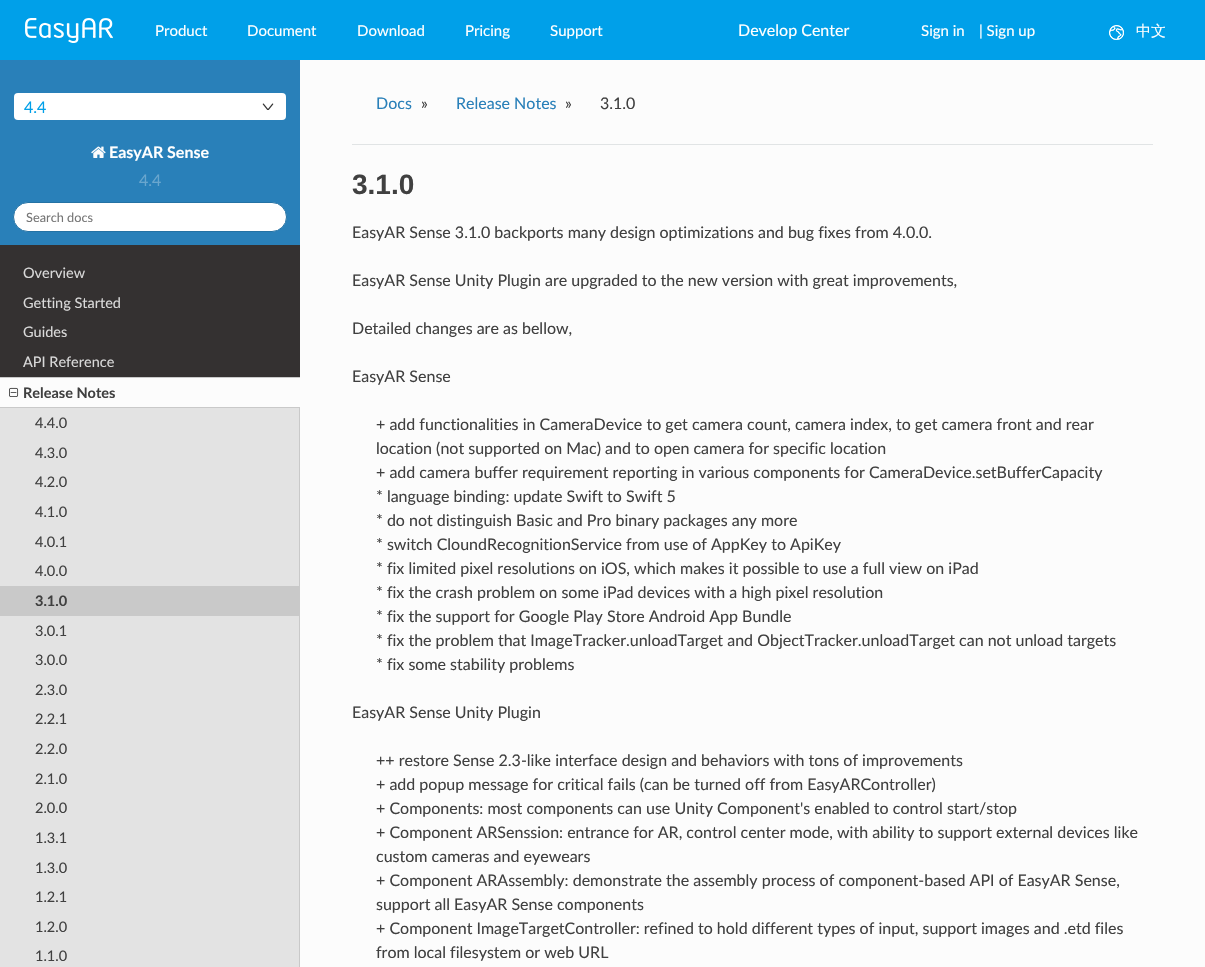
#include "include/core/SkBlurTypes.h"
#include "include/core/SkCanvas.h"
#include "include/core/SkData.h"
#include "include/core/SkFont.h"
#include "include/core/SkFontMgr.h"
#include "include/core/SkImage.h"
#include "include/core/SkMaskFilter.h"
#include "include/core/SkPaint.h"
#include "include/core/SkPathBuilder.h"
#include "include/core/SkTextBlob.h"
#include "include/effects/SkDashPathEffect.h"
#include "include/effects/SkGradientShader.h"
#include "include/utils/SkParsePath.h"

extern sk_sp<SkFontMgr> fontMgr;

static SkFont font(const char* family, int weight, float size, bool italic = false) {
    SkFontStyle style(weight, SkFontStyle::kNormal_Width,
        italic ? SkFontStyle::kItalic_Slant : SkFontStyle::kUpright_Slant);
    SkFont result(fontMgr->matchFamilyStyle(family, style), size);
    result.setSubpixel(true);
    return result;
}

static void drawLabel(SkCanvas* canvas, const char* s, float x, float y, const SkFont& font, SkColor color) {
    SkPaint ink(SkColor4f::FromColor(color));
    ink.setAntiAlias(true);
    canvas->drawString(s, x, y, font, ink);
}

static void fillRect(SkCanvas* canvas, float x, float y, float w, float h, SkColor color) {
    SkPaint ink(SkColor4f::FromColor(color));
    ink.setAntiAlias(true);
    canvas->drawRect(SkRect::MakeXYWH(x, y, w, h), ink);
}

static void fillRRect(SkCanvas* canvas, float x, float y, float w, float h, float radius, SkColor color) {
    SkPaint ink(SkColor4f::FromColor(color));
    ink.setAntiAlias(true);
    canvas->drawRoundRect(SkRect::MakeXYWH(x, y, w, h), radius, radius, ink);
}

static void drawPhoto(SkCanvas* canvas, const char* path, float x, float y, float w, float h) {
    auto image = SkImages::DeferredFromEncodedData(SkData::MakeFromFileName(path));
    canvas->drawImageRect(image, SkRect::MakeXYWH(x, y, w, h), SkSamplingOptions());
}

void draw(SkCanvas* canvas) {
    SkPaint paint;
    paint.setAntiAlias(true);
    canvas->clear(0xFF00A0E9);
    drawPhoto(canvas, "assets/img1.png", 25, 18, 88, 25);
    SkFont font1 = font("Lato", 400, 15);
    drawLabel(canvas, "Product", 155, 36, font1, 0xFFFFFFFF);
    drawLabel(canvas, "Document", 247, 36, font1, 0xFFFFFFFF);
    drawLabel(canvas, "Download", 357, 36, font1, 0xFFFFFFFF);
    drawLabel(canvas, "Pricing", 465, 36, font1, 0xFFFFFFFF);
    drawLabel(canvas, "Support", 550, 36, font1, 0xFFFFFFFF);
    SkFont font2 = font("Lato", 400, 16);
    drawLabel(canvas, "Develop Center", 738, 36, font2, 0xFFFFFFFF);
    drawLabel(canvas, "Sign in", 921, 36, font1, 0xFFFFFFFF);
    drawLabel(canvas, "| Sign up", 979, 36, font1, 0xFFFFFFFF);
    drawPhoto(canvas, "assets/img2.png", 1109, 25, 15, 15);
    SkFont font3 = font("WenQuanYi Zen Hei", 500, 15);
    drawLabel(canvas, "中文", 1136, 36, font3, 0xFFFFFFFF);
    fillRect(canvas, 0, 245, 300, 132, 0xFF343131);
    fillRect(canvas, 0, 60, 300, 185, 0xFF2980B9);
    fillRRect(canvas, 14, 93, 272, 27, 4, 0xFFFFFFFF);
    drawLabel(canvas, "4.4", 24, 113, font2, 0xFF00A0E9);
    drawPhoto(canvas, "assets/img3.png", 262, 103, 12, 7);
    drawPhoto(canvas, "assets/img4.png", 91, 146, 15, 12);
    SkFont font4 = font("Lato", 700, 16);
    drawLabel(canvas, "EasyAR Sense", 109, 158, font4, 0xFFFFFFFF);
    drawLabel(canvas, "4.4", 139, 186, font2, 0xFF69A6CE);
    paint.setColor(0xFFFFFFFF);
    canvas->drawRoundRect(SkRect::MakeXYWH(13.5f, 202.5f, 273, 29), 14.5f, 14.5f, paint);
    paint.setStroke(true);
    paint.setStrokeWidth(1);
    paint.setColor(0xFF2472A4);
    canvas->drawRoundRect(SkRect::MakeXYWH(13.5f, 202.5f, 273, 29), 14.5f, 14.5f, paint);
    SkFont font5 = font("Lato", 400, 12.75f);
    drawLabel(canvas, "Search docs", 26, 222, font5, 0xFF757575);
    SkFont font6 = font("Lato", 400, 14.5f);
    drawLabel(canvas, "Overview", 23, 278, font6, 0xFFD9D9D9);
    drawLabel(canvas, "Getting Started", 23, 308, font6, 0xFFD9D9D9);
    drawLabel(canvas, "Guides", 23, 337, font6, 0xFFD9D9D9);
    drawLabel(canvas, "API Reference", 23, 367, font6, 0xFFD9D9D9);
    fillRect(canvas, 0, 408, 299, 559, 0xFFE3E3E3);
    fillRect(canvas, 0, 378, 300, 29, 0xFFFCFCFC);
    fillRect(canvas, 0, 377, 300, 1, 0xFFC9C9C9);
    fillRect(canvas, 0, 407, 300, 1, 0xFFC9C9C9);
    drawPhoto(canvas, "assets/img5.png", 9, 387, 10, 10);
    SkFont font7 = font("Lato", 700, 14.5f);
    drawLabel(canvas, "Release Notes", 23, 398, font7, 0xFF404040);
    fillRect(canvas, 299, 408, 1, 178, 0xFFC9C9C9);
    drawLabel(canvas, "4.4.0", 35, 428, font6, 0xFF404040);
    drawLabel(canvas, "4.3.0", 35, 458, font6, 0xFF404040);
    drawLabel(canvas, "4.2.0", 35, 487, font6, 0xFF404040);
    drawLabel(canvas, "4.1.0", 35, 517, font6, 0xFF404040);
    drawLabel(canvas, "4.0.1", 35, 547, font6, 0xFF404040);
    drawLabel(canvas, "4.0.0", 35, 576, font6, 0xFF404040);
    fillRect(canvas, 0, 586, 300, 30, 0xFFC9C9C9);
    drawLabel(canvas, "3.1.0", 35, 606, font7, 0xFF404040);
    fillRect(canvas, 299, 616, 1, 351, 0xFFC9C9C9);
    drawLabel(canvas, "3.0.1", 35, 636, font6, 0xFF404040);
    drawLabel(canvas, "3.0.0", 35, 665, font6, 0xFF404040);
    drawLabel(canvas, "2.3.0", 35, 695, font6, 0xFF404040);
    drawLabel(canvas, "2.2.1", 35, 724, font6, 0xFF404040);
    drawLabel(canvas, "2.2.0", 35, 754, font6, 0xFF404040);
    drawLabel(canvas, "2.1.0", 35, 784, font6, 0xFF404040);
    drawLabel(canvas, "2.0.0", 35, 813, font6, 0xFF404040);
    drawLabel(canvas, "1.3.1", 35, 843, font6, 0xFF404040);
    drawLabel(canvas, "1.3.0", 35, 873, font6, 0xFF404040);
    drawLabel(canvas, "1.2.1", 35, 902, font6, 0xFF404040);
    drawLabel(canvas, "1.2.0", 35, 932, font6, 0xFF404040);
    drawLabel(canvas, "1.1.0", 35, 961, font6, 0xFF404040);
    fillRect(canvas, 300, 60, 905, 907, 0xFFFCFCFC);
    drawLabel(canvas, "Docs", 376, 109, font2, 0xFF2980B9);
    drawLabel(canvas, "»", 421, 109, font2, 0xFF404040);
    drawLabel(canvas, "Release Notes", 456, 109, font2, 0xFF2980B9);
    drawLabel(canvas, "»", 565, 109, font2, 0xFF404040);
    drawLabel(canvas, "3.1.0", 600, 109, font2, 0xFF404040);
    fillRect(canvas, 352, 144, 801, 1, 0xFFE1E4E5);
    SkFont font8 = font("Liberation Sans", 700, 28);
    drawLabel(canvas, "3.1.0", 352, 194, font8, 0xFF404040);
    drawLabel(canvas, "EasyAR Sense 3.1.0 backports many design optimizations and bug fixes from 4.0.0.", 352, 238, font2, 0xFF404040);
    drawLabel(canvas, "EasyAR Sense Unity Plugin are upgraded to the new version with great improvements,", 352, 286, font2, 0xFF404040);
    drawLabel(canvas, "Detailed changes are as bellow,", 352, 334, font2, 0xFF404040);
    drawLabel(canvas, "EasyAR Sense", 352, 382, font2, 0xFF404040);
    drawLabel(canvas, "+ add functionalities in CameraDevice to get camera count, camera index, to get camera front and rear", 376, 430, font2, 0xFF404040);
    drawLabel(canvas, "location (not supported on Mac) and to open camera for specific location", 376, 454, font2, 0xFF404040);
    drawLabel(canvas, "+ add camera buffer requirement reporting in various components for CameraDevice.setBufferCapacity", 376, 478, font2, 0xFF404040);
    drawLabel(canvas, "* language binding: update Swift to Swift 5", 376, 502, font2, 0xFF404040);
    drawLabel(canvas, "* do not distinguish Basic and Pro binary packages any more", 376, 526, font2, 0xFF404040);
    drawLabel(canvas, "* switch CloundRecognitionService from use of AppKey to ApiKey", 376, 550, font2, 0xFF404040);
    drawLabel(canvas, "* fix limited pixel resolutions on iOS, which makes it possible to use a full view on iPad", 376, 574, font2, 0xFF404040);
    drawLabel(canvas, "* fix the crash problem on some iPad devices with a high pixel resolution", 376, 598, font2, 0xFF404040);
    drawLabel(canvas, "* fix the support for Google Play Store Android App Bundle", 376, 622, font2, 0xFF404040);
    drawLabel(canvas, "* fix the problem that ImageTracker.unloadTarget and ObjectTracker.unloadTarget can not unload targets", 376, 646, font2, 0xFF404040);
    drawLabel(canvas, "* fix some stability problems", 376, 670, font2, 0xFF404040);
    drawLabel(canvas, "EasyAR Sense Unity Plugin", 352, 718, font2, 0xFF404040);
    drawLabel(canvas, "++ restore Sense 2.3-like interface design and behaviors with tons of improvements", 376, 766, font2, 0xFF404040);
    drawLabel(canvas, "+ add popup message for critical fails (can be turned off from EasyARController)", 376, 790, font2, 0xFF404040);
    drawLabel(canvas, "+ Components: most components can use Unity Component's enabled to control start/stop", 376, 814, font2, 0xFF404040);
    drawLabel(canvas, "+ Component ARSenssion: entrance for AR, control center mode, with ability to support external devices like", 376, 838, font2, 0xFF404040);
    drawLabel(canvas, "custom cameras and eyewears", 376, 862, font2, 0xFF404040);
    drawLabel(canvas, "+ Component ARAssembly: demonstrate the assembly process of component-based API of EasyAR Sense,", 376, 886, font2, 0xFF404040);
    drawLabel(canvas, "support all EasyAR Sense components", 376, 910, font2, 0xFF404040);
    drawLabel(canvas, "+ Component ImageTargetController: refined to hold different types of input, support images and .etd files", 376, 934, font2, 0xFF404040);
    drawLabel(canvas, "from local filesystem or web URL", 376, 958, font2, 0xFF404040);
}
